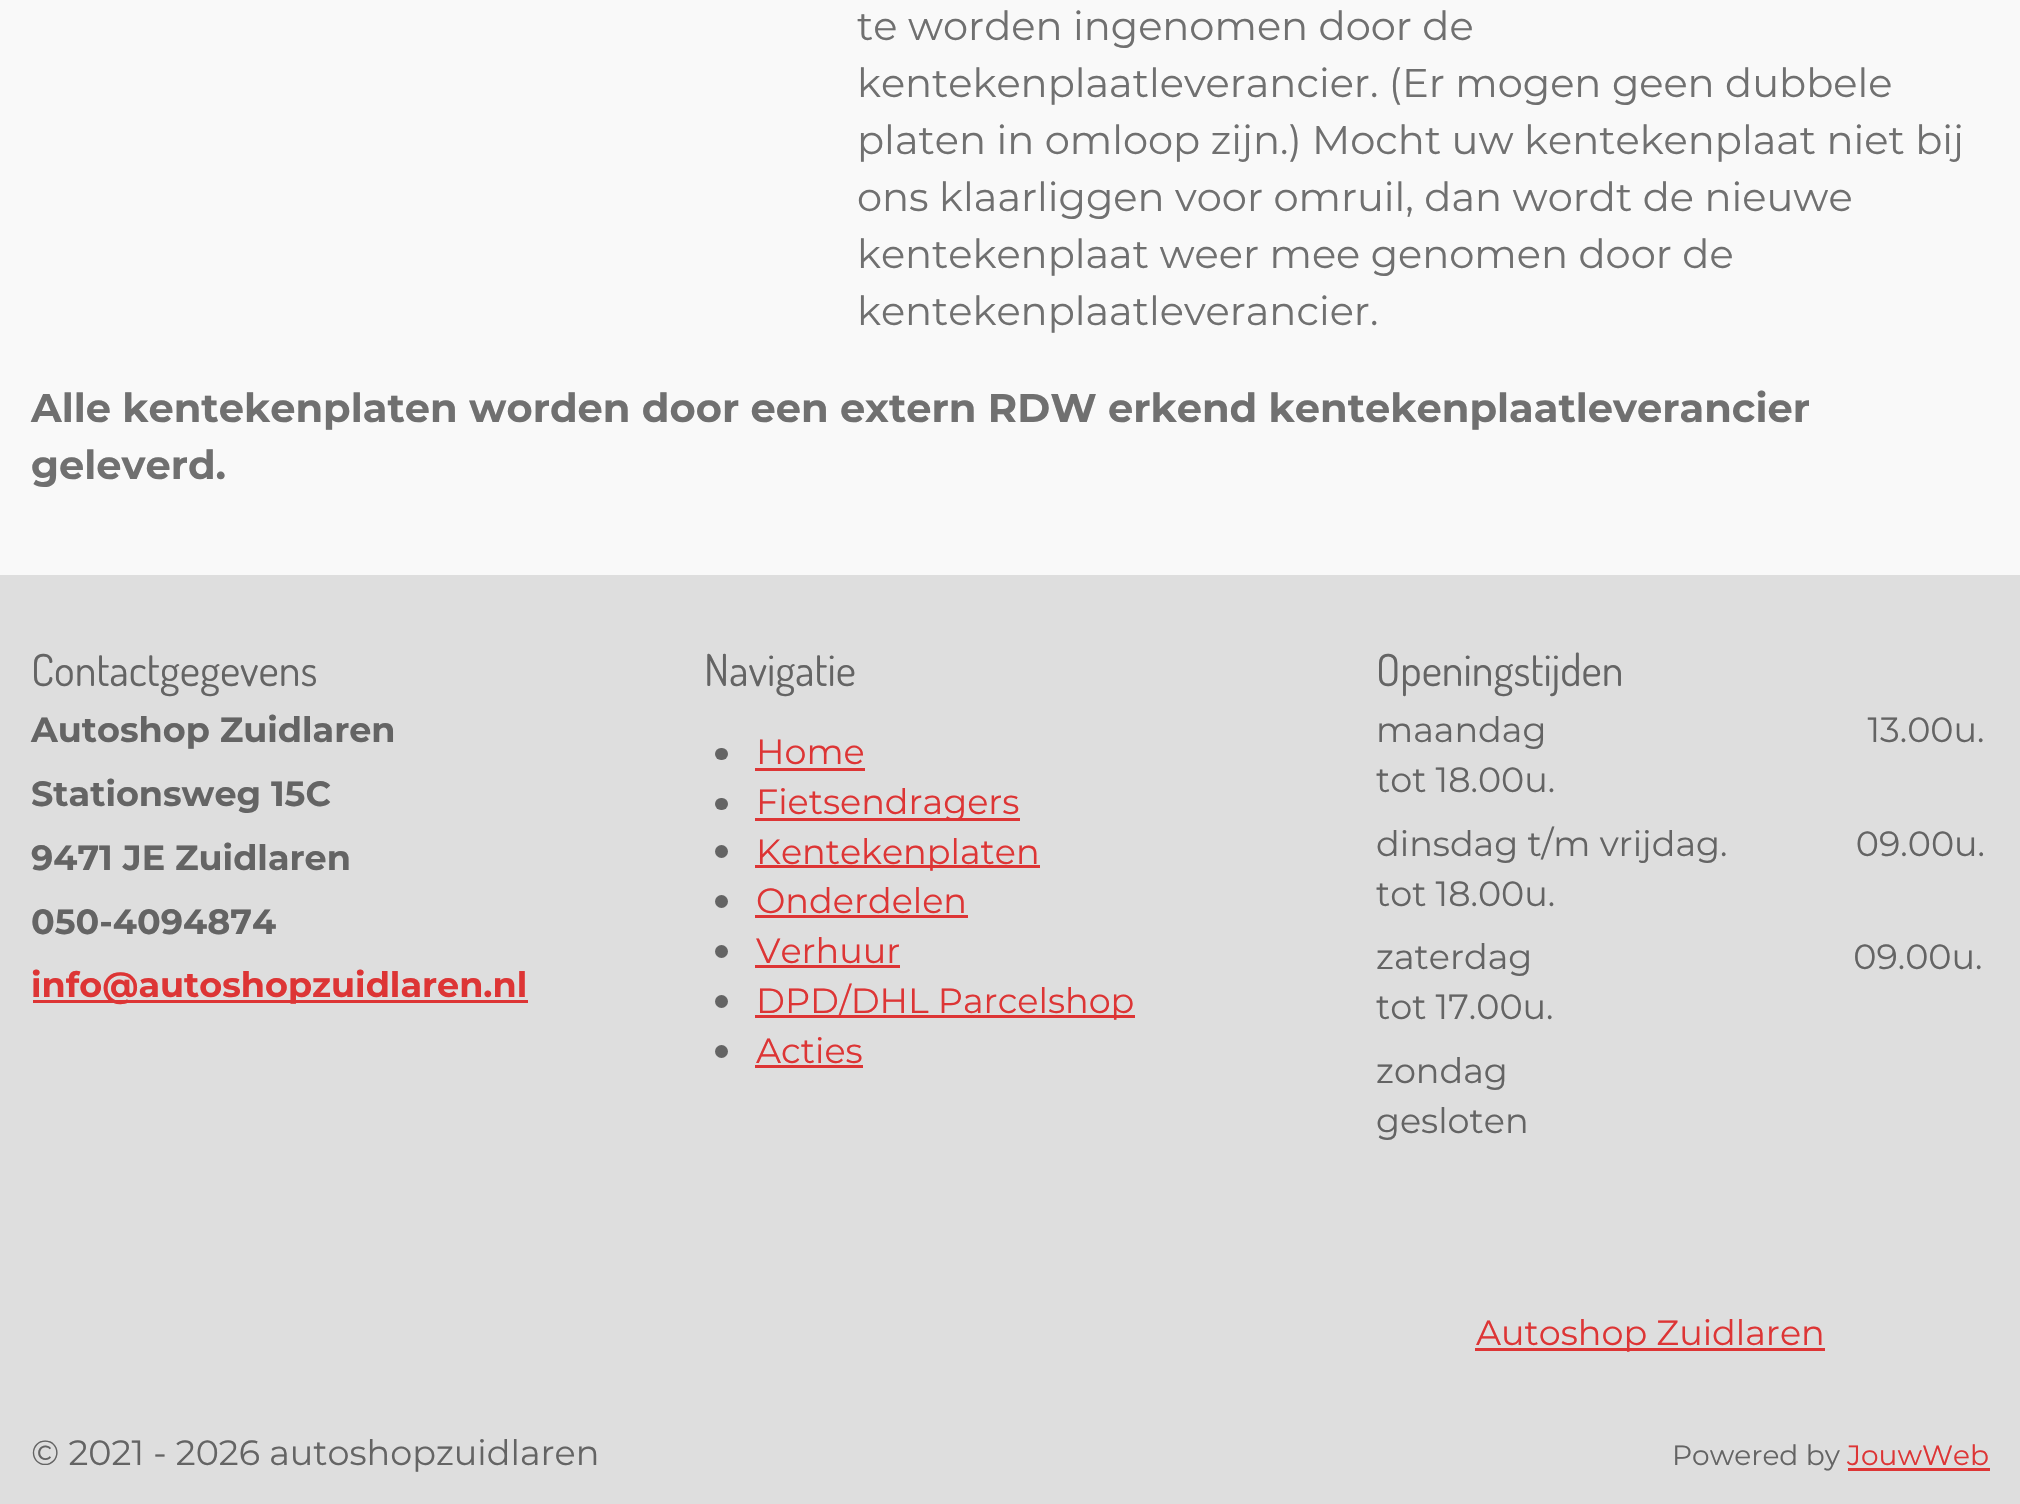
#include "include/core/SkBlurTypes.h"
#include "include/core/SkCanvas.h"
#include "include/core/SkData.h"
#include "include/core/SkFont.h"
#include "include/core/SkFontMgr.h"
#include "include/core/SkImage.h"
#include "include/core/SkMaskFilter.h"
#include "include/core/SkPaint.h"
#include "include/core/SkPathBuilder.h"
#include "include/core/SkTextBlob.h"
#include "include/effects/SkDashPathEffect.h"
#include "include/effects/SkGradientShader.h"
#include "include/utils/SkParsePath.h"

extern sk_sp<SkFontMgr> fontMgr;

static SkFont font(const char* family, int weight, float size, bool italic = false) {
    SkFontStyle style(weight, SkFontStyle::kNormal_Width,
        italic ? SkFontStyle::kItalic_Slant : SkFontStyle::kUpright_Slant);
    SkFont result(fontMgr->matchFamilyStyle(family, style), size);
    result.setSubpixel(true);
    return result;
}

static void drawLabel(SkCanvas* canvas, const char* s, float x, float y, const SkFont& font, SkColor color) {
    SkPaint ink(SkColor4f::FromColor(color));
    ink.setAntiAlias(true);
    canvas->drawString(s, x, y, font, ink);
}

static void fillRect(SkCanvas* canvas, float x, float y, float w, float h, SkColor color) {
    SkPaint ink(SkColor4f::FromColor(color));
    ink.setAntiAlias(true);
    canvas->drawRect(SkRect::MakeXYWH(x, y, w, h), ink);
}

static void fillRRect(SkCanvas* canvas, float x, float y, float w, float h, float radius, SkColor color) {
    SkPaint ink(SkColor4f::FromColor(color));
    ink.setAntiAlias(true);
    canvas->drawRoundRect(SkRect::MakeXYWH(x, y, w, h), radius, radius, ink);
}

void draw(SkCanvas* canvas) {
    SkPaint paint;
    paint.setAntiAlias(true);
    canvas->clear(0xFFF9F9F9);
    SkFont font1 = font("Montserrat", 400, 40);
    drawLabel(canvas, "te worden ingenomen door de", 857, 40, font1, 0xFF707070);
    drawLabel(canvas, "kentekenplaatleverancier. (Er mogen geen dubbele", 857, 97, font1, 0xFF707070);
    drawLabel(canvas, "platen in omloop zijn.) Mocht uw kentekenplaat niet bij", 857, 154, font1, 0xFF707070);
    drawLabel(canvas, "ons klaarliggen voor omruil, dan wordt de nieuwe", 857, 211, font1, 0xFF707070);
    drawLabel(canvas, "kentekenplaat weer mee genomen door de", 857, 268, font1, 0xFF707070);
    drawLabel(canvas, "kentekenplaatleverancier.", 857, 325, font1, 0xFF707070);
    SkFont font2 = font("Montserrat", 700, 40);
    drawLabel(canvas, "Alle kentekenplaten worden door een extern RDW erkend kentekenplaatleverancier", 31, 422, font2, 0xFF707070);
    drawLabel(canvas, "geleverd.", 31, 479, font2, 0xFF707070);
    fillRect(canvas, 0, 575, 2020, 929, 0xFFDEDEDE);
    SkFont font3 = font("Dosis", 400, 44);
    drawLabel(canvas, "Contactgegevens", 31, 686, font3, 0xFF646464);
    SkFont font4 = font("Montserrat", 700, 35);
    drawLabel(canvas, "Autoshop Zuidlaren", 31, 742, font4, 0xFF646464);
    drawLabel(canvas, "Stationsweg 15C", 31, 806, font4, 0xFF646464);
    drawLabel(canvas, "9471 JE Zuidlaren", 31, 870, font4, 0xFF646464);
    drawLabel(canvas, "050-4094874", 31, 934, font4, 0xFF646464);
    fillRect(canvas, 33, 1000, 495, 3, 0xFFDD3535);
    drawLabel(canvas, "info@autoshopzuidlaren.nl", 31, 997, font4, 0xFFDD3535);
    drawLabel(canvas, "Navigatie", 704, 686, font3, 0xFF646464);
    fillRRect(canvas, 715, 748, 13, 12, 6, 0xFF646464);
    SkFont font5 = font("Montserrat", 400, 35);
    drawLabel(canvas, "Home", 756, 764, font5, 0xFFDD3535);
    fillRect(canvas, 755, 768, 110, 3, 0xFFDD3535);
    fillRRect(canvas, 715, 798, 13, 12, 6, 0xFF646464);
    fillRect(canvas, 755, 818, 265, 3, 0xFFDD3535);
    drawLabel(canvas, "Fietsendragers", 756, 814, font5, 0xFFDD3535);
    paint.setColor(0xFF646464);
    canvas->drawCircle(721.5f, 851.5f, 6.5f, paint);
    fillRect(canvas, 755, 865, 285, 3, 0xFFDD3535);
    drawLabel(canvas, "Kentekenplaten", 756, 864, font5, 0xFFDD3535);
    canvas->drawCircle(721.5f, 901.5f, 6.5f, paint);
    drawLabel(canvas, "Onderdelen", 756, 913, font5, 0xFFDD3535);
    fillRect(canvas, 755, 915, 213, 3, 0xFFDD3535);
    canvas->drawCircle(721.5f, 951.5f, 6.5f, paint);
    drawLabel(canvas, "Verhuur", 756, 963, font5, 0xFFDD3535);
    fillRect(canvas, 755, 965, 145, 3, 0xFFDD3535);
    canvas->drawCircle(721.5f, 1001.5f, 6.5f, paint);
    fillRect(canvas, 755, 1015, 380, 3, 0xFFDD3535);
    drawLabel(canvas, "DPD/DHL Parcelshop", 756, 1013, font5, 0xFFDD3535);
    canvas->drawCircle(721.5f, 1051.5f, 6.5f, paint);
    drawLabel(canvas, "Acties", 756, 1063, font5, 0xFFDD3535);
    fillRect(canvas, 755, 1065, 108, 3, 0xFFDD3535);
    drawLabel(canvas, "Openingstijden", 1376, 686, font3, 0xFF646464);
    drawLabel(canvas, "maandag                                   13.00u.", 1376, 742, font5, 0xFF646464);
    drawLabel(canvas, "tot 18.00u.", 1376, 792, font5, 0xFF646464);
    drawLabel(canvas, "dinsdag t/m vrijdag.              09.00u.", 1376, 856, font5, 0xFF646464);
    drawLabel(canvas, "tot 18.00u.", 1376, 906, font5, 0xFF646464);
    drawLabel(canvas, "zaterdag                                   09.00u.", 1376, 969, font5, 0xFF646464);
    drawLabel(canvas, "tot 17.00u.", 1376, 1019, font5, 0xFF646464);
    drawLabel(canvas, "zondag", 1376, 1083, font5, 0xFF646464);
    drawLabel(canvas, "gesloten", 1376, 1133, font5, 0xFF646464);
    fillRect(canvas, 1475, 1348, 350, 3, 0xFFDD3535);
    drawLabel(canvas, "Autoshop Zuidlaren", 1476, 1345, font5, 0xFFDD3535);
    drawLabel(canvas, "© 2021 - 2026 autoshopzuidlaren", 31, 1465, font5, 0xFF646464);
    SkFont font6 = font("Montserrat", 400, 28);
    drawLabel(canvas, "Powered by", 1672, 1465, font6, 0xFF646464);
    drawLabel(canvas, "JouwWeb", 1847, 1465, font6, 0xFFDD3535);
    fillRect(canvas, 1848, 1468, 142, 3, 0xFFDD3535);
}
